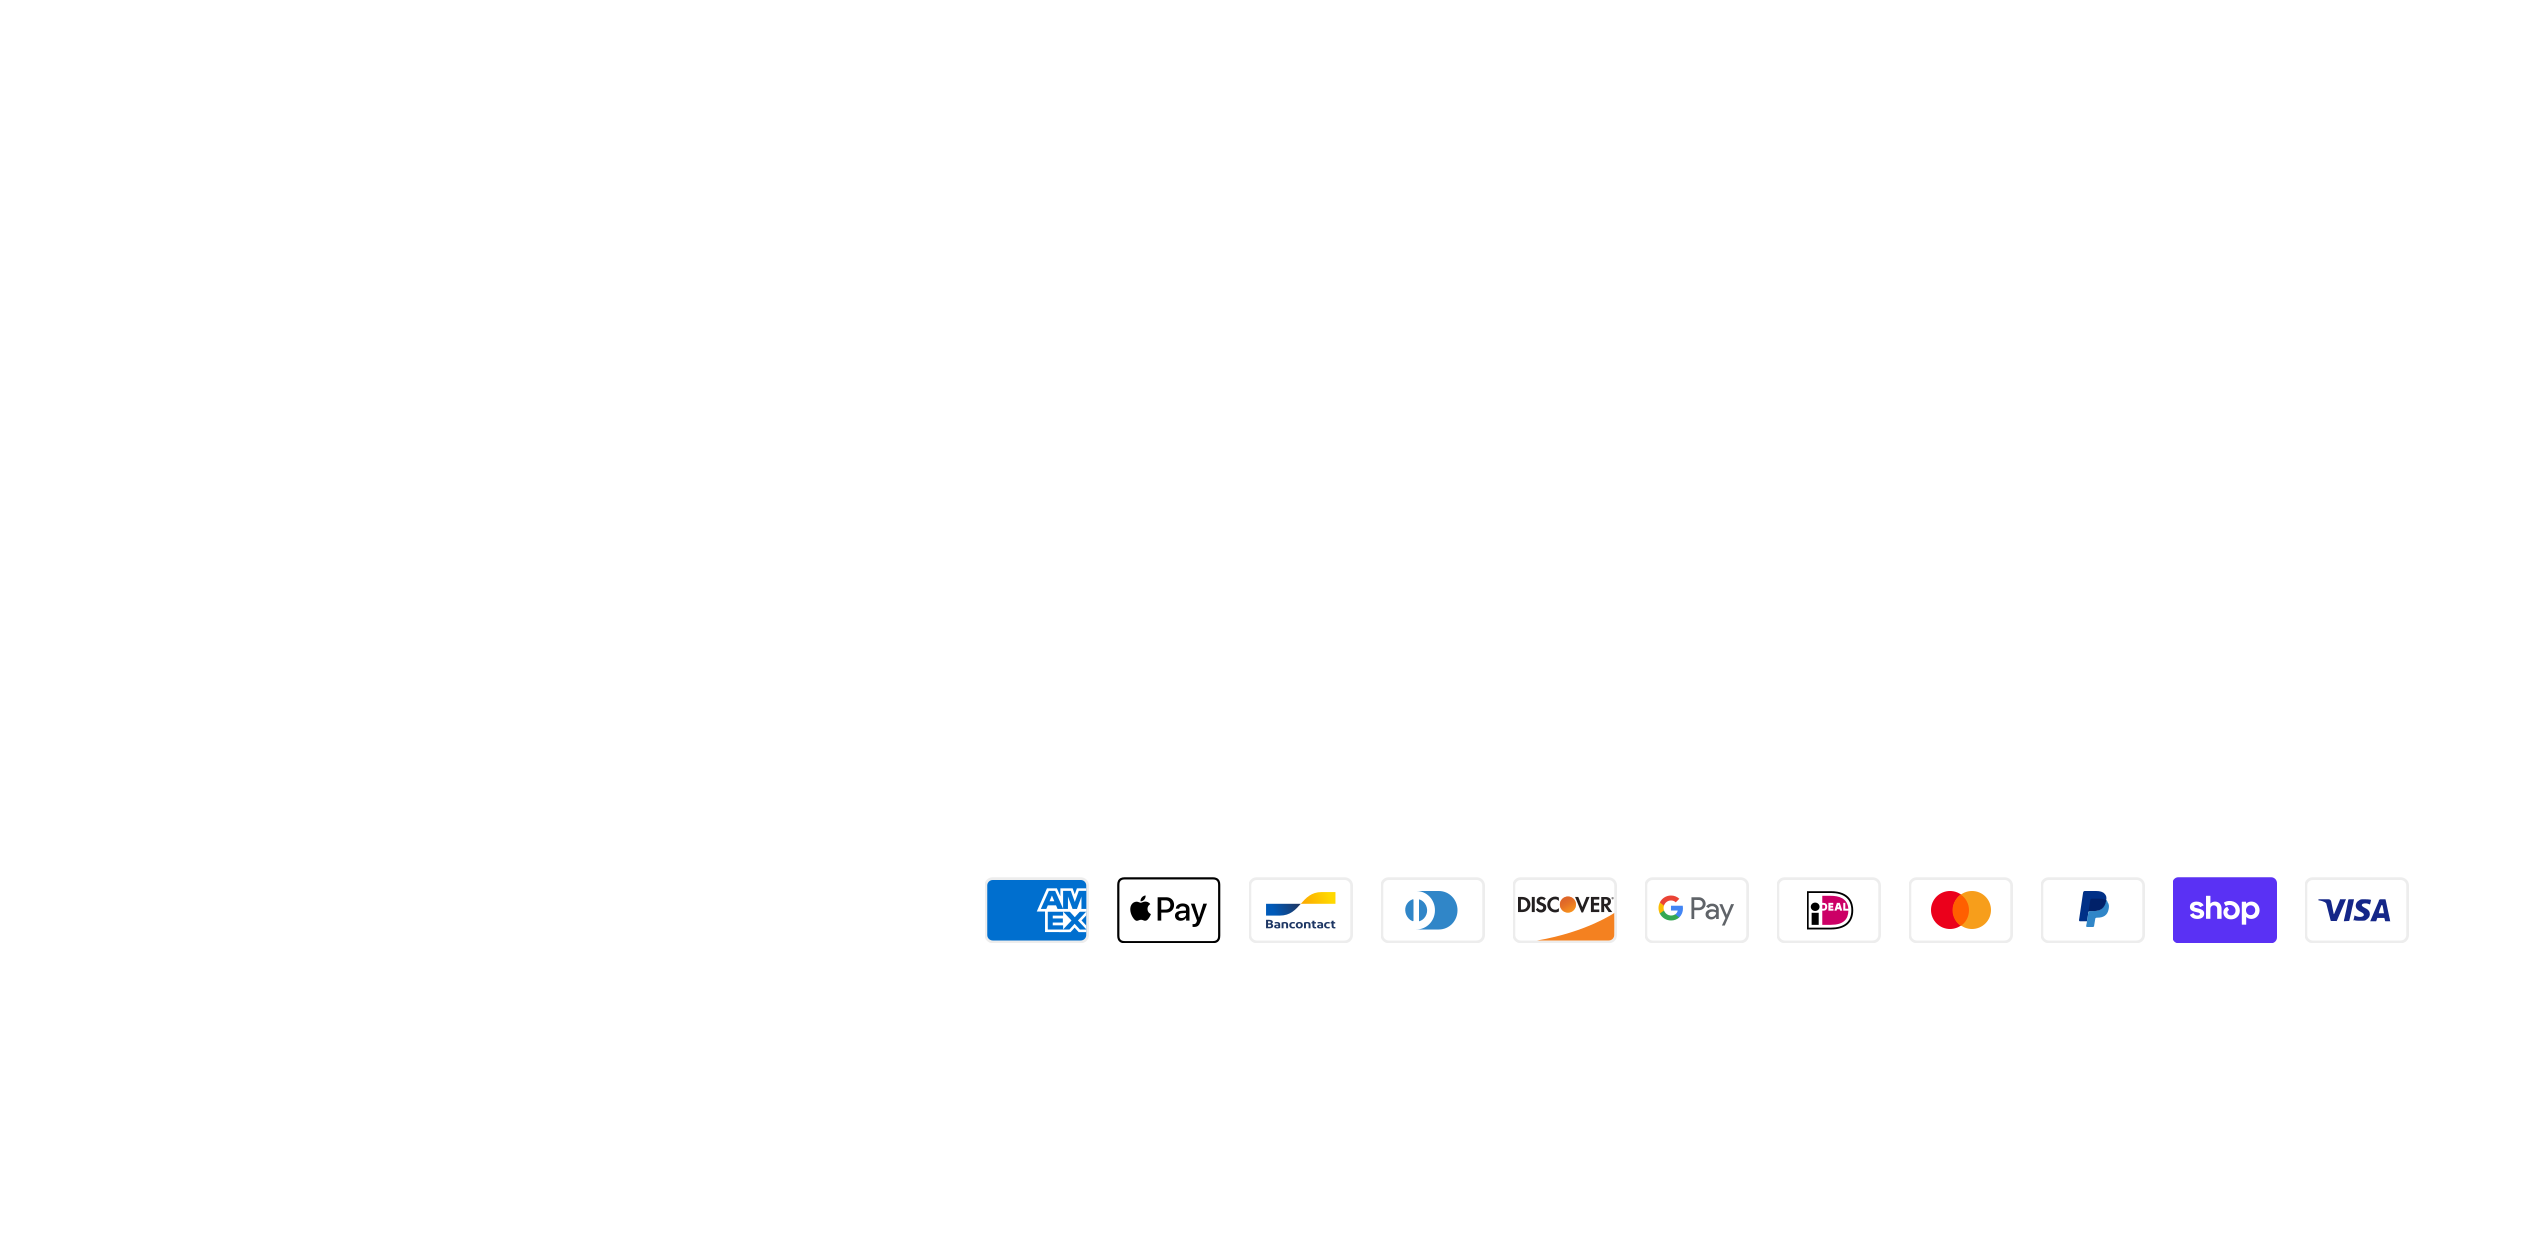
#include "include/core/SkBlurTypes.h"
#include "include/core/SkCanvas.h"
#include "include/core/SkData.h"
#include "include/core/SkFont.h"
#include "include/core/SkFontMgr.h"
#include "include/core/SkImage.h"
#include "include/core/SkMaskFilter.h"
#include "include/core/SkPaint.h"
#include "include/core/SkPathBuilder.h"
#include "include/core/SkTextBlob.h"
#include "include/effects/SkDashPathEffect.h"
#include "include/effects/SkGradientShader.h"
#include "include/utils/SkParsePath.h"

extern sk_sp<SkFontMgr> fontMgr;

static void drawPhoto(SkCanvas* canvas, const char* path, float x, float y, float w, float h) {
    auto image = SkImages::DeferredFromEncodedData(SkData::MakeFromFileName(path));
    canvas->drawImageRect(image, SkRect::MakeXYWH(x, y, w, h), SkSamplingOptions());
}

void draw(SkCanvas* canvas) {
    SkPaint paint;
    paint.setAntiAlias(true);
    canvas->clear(0xFFFFFFFF);
    drawPhoto(canvas, "assets/img1.png", 985, 877, 104, 66);
    drawPhoto(canvas, "assets/img2.png", 1117, 877, 104, 66);
    drawPhoto(canvas, "assets/img3.png", 1249, 877, 104, 66);
    drawPhoto(canvas, "assets/img4.png", 1381, 877, 104, 66);
    drawPhoto(canvas, "assets/img5.png", 1513, 877, 104, 66);
    drawPhoto(canvas, "assets/img6.png", 1645, 877, 104, 66);
    drawPhoto(canvas, "assets/img7.png", 1777, 877, 104, 66);
    drawPhoto(canvas, "assets/img8.png", 1909, 877, 104, 66);
    drawPhoto(canvas, "assets/img9.png", 2041, 877, 104, 66);
    drawPhoto(canvas, "assets/img10.png", 2173, 877, 104, 66);
    drawPhoto(canvas, "assets/img11.png", 2305, 877, 104, 66);
}
